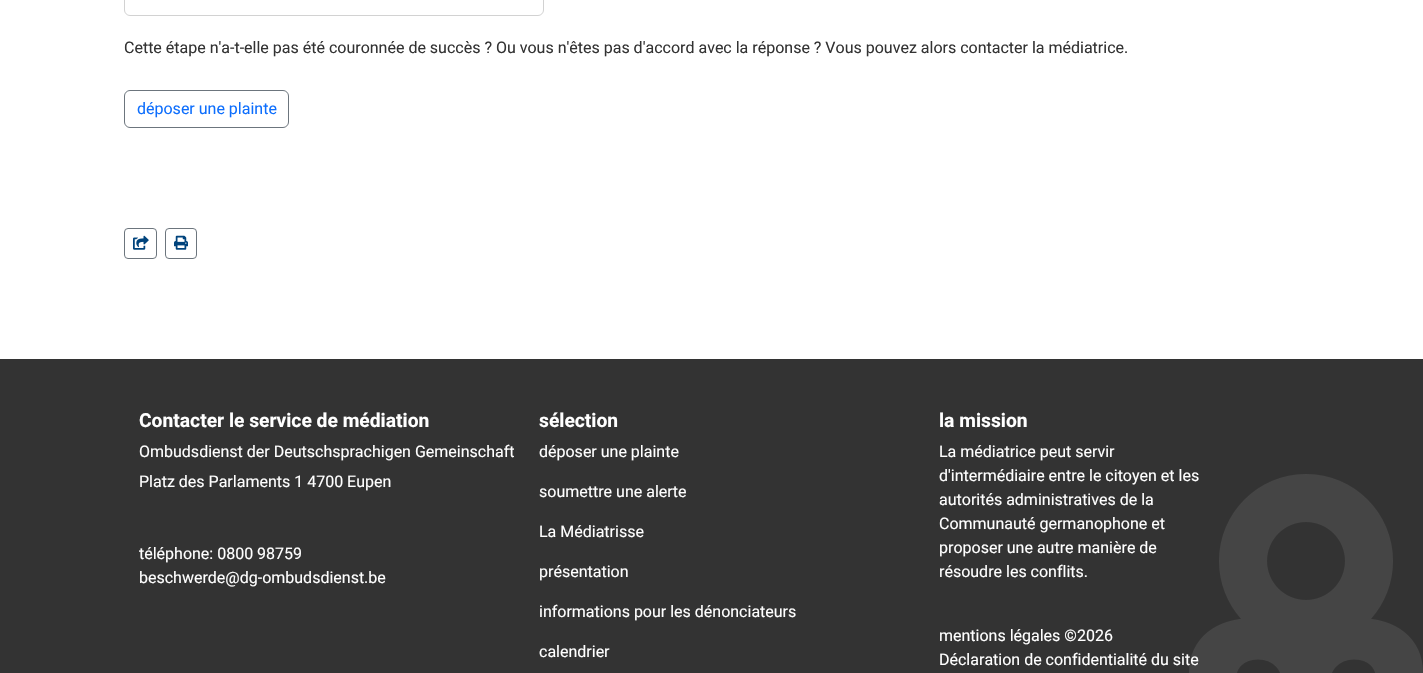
#include "include/core/SkBlurTypes.h"
#include "include/core/SkCanvas.h"
#include "include/core/SkData.h"
#include "include/core/SkFont.h"
#include "include/core/SkFontMgr.h"
#include "include/core/SkImage.h"
#include "include/core/SkMaskFilter.h"
#include "include/core/SkPaint.h"
#include "include/core/SkPathBuilder.h"
#include "include/core/SkTextBlob.h"
#include "include/effects/SkDashPathEffect.h"
#include "include/effects/SkGradientShader.h"
#include "include/utils/SkParsePath.h"

extern sk_sp<SkFontMgr> fontMgr;

static SkFont font(const char* family, int weight, float size, bool italic = false) {
    SkFontStyle style(weight, SkFontStyle::kNormal_Width,
        italic ? SkFontStyle::kItalic_Slant : SkFontStyle::kUpright_Slant);
    SkFont result(fontMgr->matchFamilyStyle(family, style), size);
    result.setSubpixel(true);
    return result;
}

static void drawLabel(SkCanvas* canvas, const char* s, float x, float y, const SkFont& font, SkColor color) {
    SkPaint ink(SkColor4f::FromColor(color));
    ink.setAntiAlias(true);
    canvas->drawString(s, x, y, font, ink);
}

static void fillRect(SkCanvas* canvas, float x, float y, float w, float h, SkColor color) {
    SkPaint ink(SkColor4f::FromColor(color));
    ink.setAntiAlias(true);
    canvas->drawRect(SkRect::MakeXYWH(x, y, w, h), ink);
}

static void drawPhoto(SkCanvas* canvas, const char* path, float x, float y, float w, float h) {
    auto image = SkImages::DeferredFromEncodedData(SkData::MakeFromFileName(path));
    canvas->drawImageRect(image, SkRect::MakeXYWH(x, y, w, h), SkSamplingOptions());
}

void draw(SkCanvas* canvas) {
    SkPaint paint;
    paint.setAntiAlias(true);
    canvas->clear(0xFFFFFFFF);
    paint.setStroke(true);
    paint.setStrokeWidth(1);
    paint.setColor(0xFFD2D2D2);
    canvas->drawRoundRect(SkRect::MakeXYWH(124.5f, -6.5f, 419, 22), 5.5f, 5.5f, paint);
    SkFont font1 = font("Roboto", 400, 16);
    drawLabel(canvas, "Cette étape n'a-t-elle pas été couronnée de succès ? Ou vous n'êtes pas d'accord avec la réponse ? Vous pouvez alors contacter la médiatrice.", 124, 53, font1, 0xFF333333);
    paint.setColor(0xFF6C757D);
    canvas->drawRoundRect(SkRect::MakeXYWH(124.5f, 90.5f, 164, 37), 5.5f, 5.5f, paint);
    drawLabel(canvas, "déposer une plainte", 137, 114, font1, 0xFF0D6EFD);
    canvas->drawRoundRect(SkRect::MakeXYWH(124.5f, 228.5f, 32, 30), 3.5f, 3.5f, paint);
    drawPhoto(canvas, "assets/img1.png", 133, 235, 16, 15);
    canvas->drawRoundRect(SkRect::MakeXYWH(165.5f, 228.5f, 31, 30), 3.5f, 3.5f, paint);
    drawPhoto(canvas, "assets/img2.png", 174, 235, 14, 15);
    fillRect(canvas, 0, 359, 1423, 314, 0xFF333333);
    drawPhoto(canvas, "assets/img3.png", 1189, 474, 234, 199);
    SkFont font2 = font("Roboto", 700, 19.25f);
    drawLabel(canvas, "Contacter le service de médiation", 139, 427, font2, 0xFFFFFFFF);
    drawLabel(canvas, "Ombudsdienst der Deutschsprachigen Gemeinschaft", 139, 457, font1, 0xFFFFFFFF);
    drawLabel(canvas, "Platz des Parlaments 1 4700 Eupen", 139, 487, font1, 0xFFFFFFFF);
    drawLabel(canvas, "téléphone: 0800 98759", 139, 559, font1, 0xFFFFFFFF);
    drawLabel(canvas, "beschwerde@dg-ombudsdienst.be", 139, 583, font1, 0xFFFFFFFF);
    drawLabel(canvas, "sélection", 539, 427, font2, 0xFFFFFFFF);
    drawLabel(canvas, "déposer une plainte", 539, 457, font1, 0xFFFFFFFF);
    drawLabel(canvas, "soumettre une alerte", 539, 497, font1, 0xFFFFFFFF);
    drawLabel(canvas, "La Médiatrisse", 539, 537, font1, 0xFFFFFFFF);
    drawLabel(canvas, "présentation", 539, 577, font1, 0xFFFFFFFF);
    drawLabel(canvas, "informations pour les dénonciateurs", 539, 617, font1, 0xFFFFFFFF);
    drawLabel(canvas, "calendrier", 539, 657, font1, 0xFFFFFFFF);
    drawLabel(canvas, "la mission", 939, 427, font2, 0xFFFFFFFF);
    drawLabel(canvas, "La médiatrice peut servir", 939, 457, font1, 0xFFFFFFFF);
    drawLabel(canvas, "d'intermédiaire entre le citoyen et les", 939, 481, font1, 0xFFFFFFFF);
    drawLabel(canvas, "autorités administratives de la", 939, 505, font1, 0xFFFFFFFF);
    drawLabel(canvas, "Communauté germanophone et", 939, 529, font1, 0xFFFFFFFF);
    drawLabel(canvas, "proposer une autre manière de", 939, 553, font1, 0xFFFFFFFF);
    drawLabel(canvas, "résoudre les conflits.", 939, 577, font1, 0xFFFFFFFF);
    drawLabel(canvas, "mentions légales ©2026", 939, 641, font1, 0xFFFFFFFF);
    drawLabel(canvas, "Déclaration de confidentialité du site", 939, 665, font1, 0xFFFFFFFF);
}
